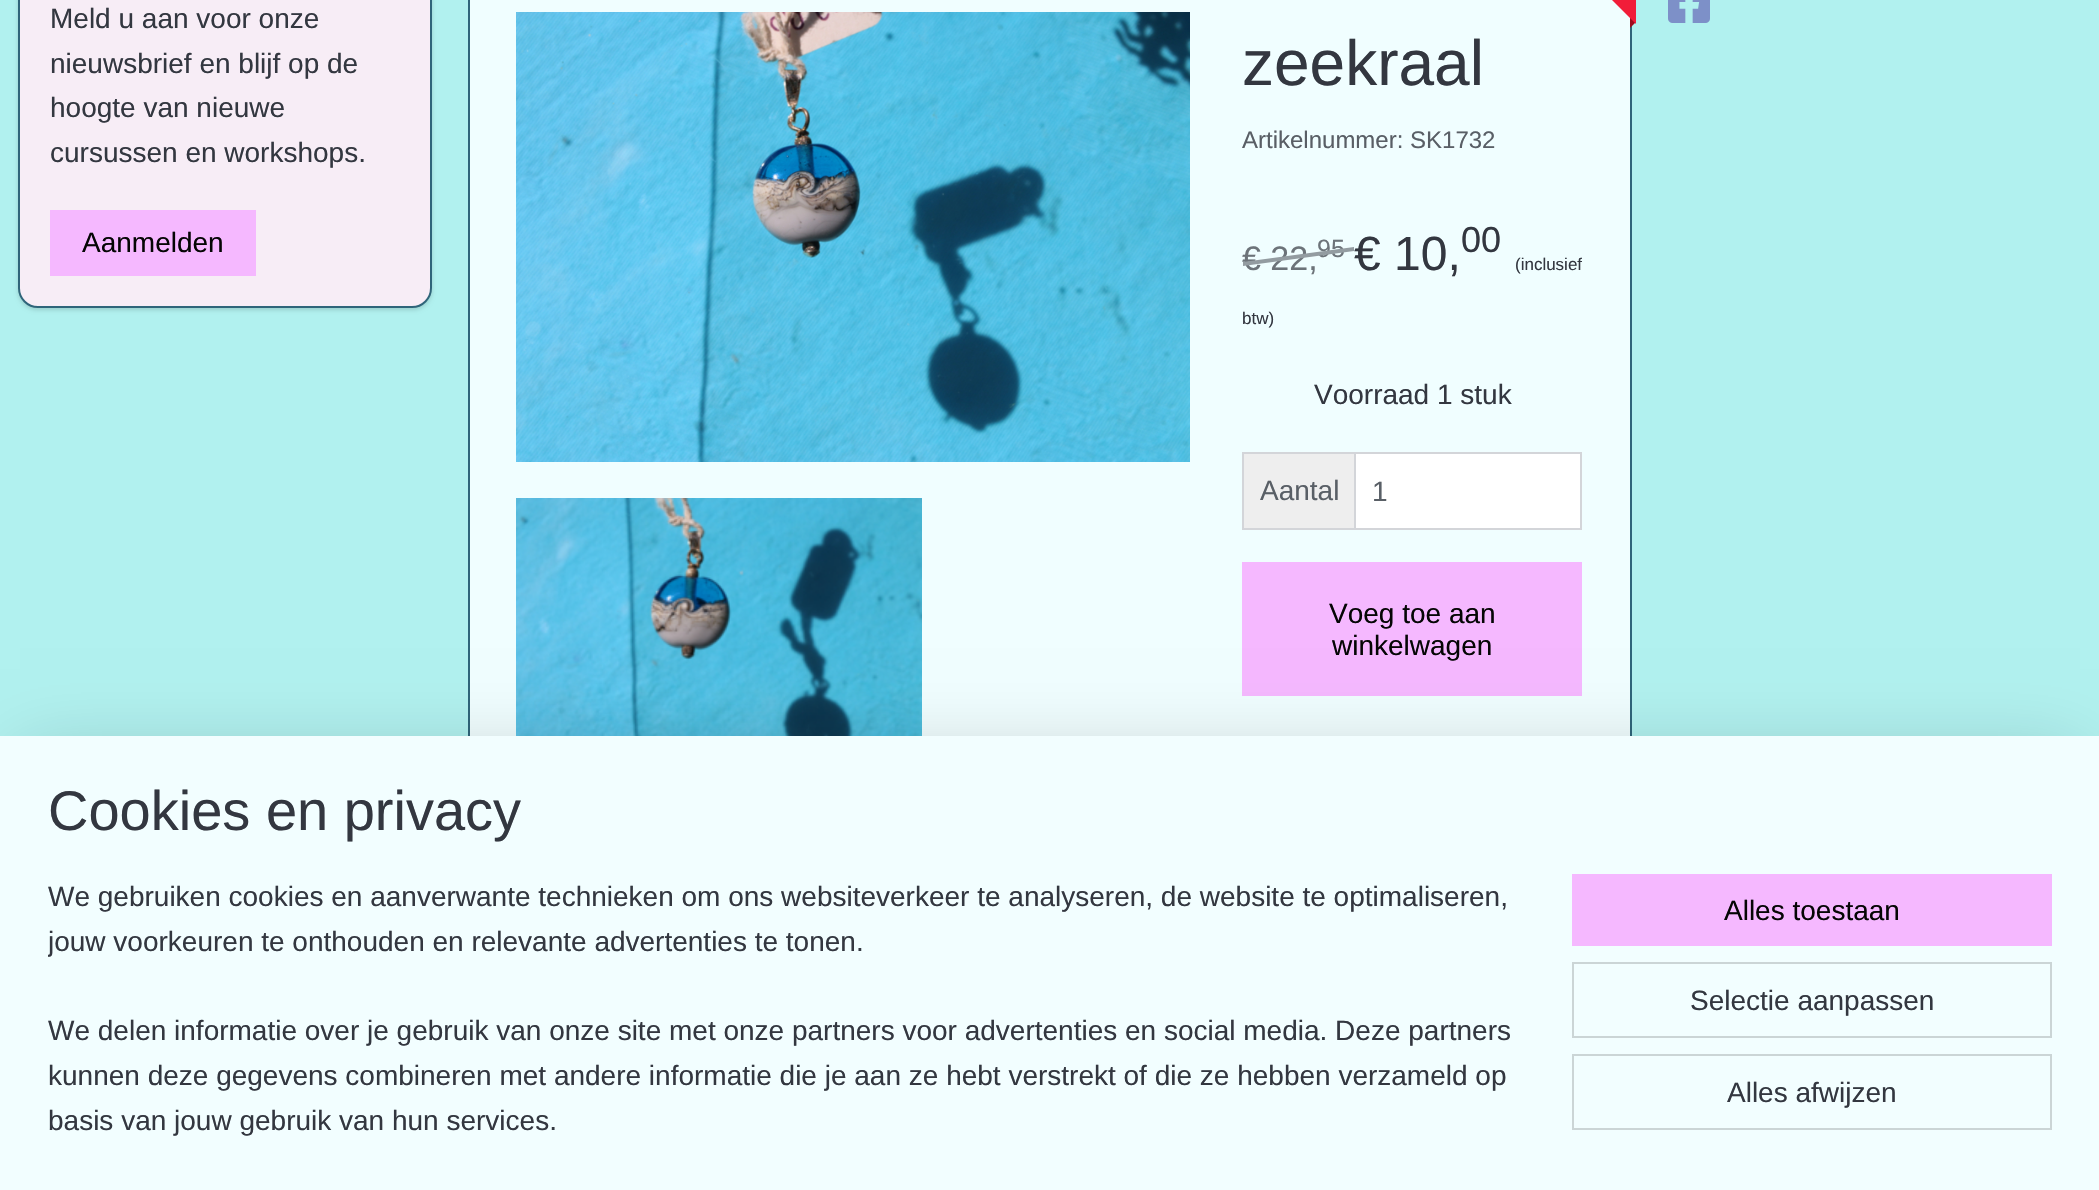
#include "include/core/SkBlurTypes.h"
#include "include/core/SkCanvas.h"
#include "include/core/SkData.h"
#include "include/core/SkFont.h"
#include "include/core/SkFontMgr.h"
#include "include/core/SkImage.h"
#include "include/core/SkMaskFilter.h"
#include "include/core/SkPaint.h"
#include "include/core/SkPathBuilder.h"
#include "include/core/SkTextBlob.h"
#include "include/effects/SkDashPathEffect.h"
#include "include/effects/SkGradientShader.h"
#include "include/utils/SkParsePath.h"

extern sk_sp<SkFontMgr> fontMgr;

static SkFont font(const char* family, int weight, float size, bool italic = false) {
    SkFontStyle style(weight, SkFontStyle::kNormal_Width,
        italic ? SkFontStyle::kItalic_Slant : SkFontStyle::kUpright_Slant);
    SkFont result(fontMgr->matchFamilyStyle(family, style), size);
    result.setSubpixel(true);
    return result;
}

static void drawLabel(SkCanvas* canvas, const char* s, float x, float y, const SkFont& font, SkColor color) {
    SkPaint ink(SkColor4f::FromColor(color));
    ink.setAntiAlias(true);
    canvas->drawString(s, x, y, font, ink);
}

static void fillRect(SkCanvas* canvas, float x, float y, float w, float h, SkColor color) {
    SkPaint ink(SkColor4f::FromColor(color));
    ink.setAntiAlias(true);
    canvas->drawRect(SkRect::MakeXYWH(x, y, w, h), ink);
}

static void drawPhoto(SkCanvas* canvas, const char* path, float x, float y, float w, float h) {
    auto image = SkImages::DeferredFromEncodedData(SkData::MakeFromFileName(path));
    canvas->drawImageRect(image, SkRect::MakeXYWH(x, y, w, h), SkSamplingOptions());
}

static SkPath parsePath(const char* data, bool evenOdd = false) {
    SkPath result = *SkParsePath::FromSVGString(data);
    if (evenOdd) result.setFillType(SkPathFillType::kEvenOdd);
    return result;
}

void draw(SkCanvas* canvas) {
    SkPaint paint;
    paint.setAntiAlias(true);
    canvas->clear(0xFFB1F1EF);
    paint.setColor(0x26000000);
    paint.setMaskFilter(SkMaskFilter::MakeBlur(kNormal_SkBlurStyle, 2));
    canvas->drawRoundRect(SkRect::MakeXYWH(18, -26, 414, 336), 20, 20, paint);
    paint.setMaskFilter(nullptr);
    paint.setColor(0xFFF7EDF6);
    canvas->drawRoundRect(SkRect::MakeXYWH(19, -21, 412, 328), 19, 19, paint);
    paint.setStroke(true);
    paint.setStrokeWidth(2);
    paint.setColor(0xFF2F657A);
    canvas->drawRoundRect(SkRect::MakeXYWH(19, -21, 412, 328), 19, 19, paint);
    SkFont font1 = font("Liberation Sans", 400, 28);
    drawLabel(canvas, "Meld u aan voor onze", 50, 28, font1, 0xFF333740);
    drawLabel(canvas, "nieuwsbrief en blijf op de", 50, 73, font1, 0xFF333740);
    drawLabel(canvas, "hoogte van nieuwe", 50, 117, font1, 0xFF333740);
    drawLabel(canvas, "cursussen en workshops.", 50, 162, font1, 0xFF333740);
    fillRect(canvas, 50, 210, 206, 66, 0xFFF5B8FF);
    drawLabel(canvas, "Aanmelden", 82, 252, font1, 0xFF050505);
    fillRect(canvas, 470, 0, 1160, 736, 0xFFF0FEFF);
    canvas->drawRect(SkRect::MakeXYWH(469, -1, 1162, 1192), paint);
    paint.setStroke(false);
    paint.setColor(0xFF9E0A1D);
    canvas->drawPath(parsePath("M1630 28V16L1636 22Z"), paint);
    canvas->save();
    canvas->clipRect(SkRect::MakeXYWH(1396, 0, 240, 64));
    paint.setColor(0xFFF11D39);
    canvas->drawPath(parsePath("M1458-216L1670-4L1639 27L1427-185Z"), paint);
    canvas->restore();
    drawPhoto(canvas, "assets/img1.png", 516, 12, 674, 450);
    drawPhoto(canvas, "assets/img2.png", 516, 498, 406, 238);
    SkFont font2 = font("Liberation Sans", 400, 64);
    drawLabel(canvas, "zeekraal", 1242, 85, font2, 0xFF333740);
    SkFont font3 = font("Liberation Sans", 400, 24);
    drawLabel(canvas, "Artikelnummer: SK1732", 1242, 148, font3, 0xFF595F66);
    SkFont font4 = font("Liberation Sans", 400, 34);
    drawLabel(canvas, "€ 22,", 1242, 270, font4, 0xFF6C7379);
    SkFont font5 = font("Liberation Sans", 400, 25);
    drawLabel(canvas, "95", 1317, 257, font5, 0xFF6C7379);
    paint.setColor(0xFF939CA1);
    canvas->drawPath(parsePath("M1243 262L1354 247V251L1243 266Z"), paint);
    SkFont font6 = font("Liberation Sans", 400, 48);
    drawLabel(canvas, "€ 10,", 1354, 270, font6, 0xFF333740);
    SkFont font7 = font("Liberation Sans", 400, 36);
    drawLabel(canvas, "00", 1461, 252, font7, 0xFF333740);
    SkFont font8 = font("Liberation Sans", 400, 17);
    drawLabel(canvas, "(inclusief", 1515, 270, font8, 0xFF333740);
    drawLabel(canvas, "btw)", 1242, 324, font8, 0xFF333740);
    drawLabel(canvas, "Voorraad 1 stuk", 1314, 404, font1, 0xFF333740);
    fillRect(canvas, 1356, 454, 224, 74, 0xFFFFFFFF);
    fillRect(canvas, 1354, 452, 2, 76, 0xFFD3D5D9);
    fillRect(canvas, 1242, 452, 340, 2, 0xFFD3D5D9);
    fillRect(canvas, 1580, 452, 2, 78, 0xFFD3D5D9);
    fillRect(canvas, 1242, 528, 340, 2, 0xFFD3D5D9);
    fillRect(canvas, 1242, 452, 2, 78, 0xFFD3D5D9);
    fillRect(canvas, 1244, 454, 110, 74, 0xFFEEEEEE);
    drawLabel(canvas, "Aantal", 1260, 500, font1, 0xFF595F66);
    drawLabel(canvas, "1", 1372, 501, font1, 0xFF595F66);
    fillRect(canvas, 1242, 562, 340, 134, 0xFFF5B8FF);
    drawLabel(canvas, "Voeg toe aan", 1329, 623, font1, 0xFF050505);
    drawLabel(canvas, "winkelwagen", 1332, 655, font1, 0xFF050505);
    drawPhoto(canvas, "assets/img3.png", 1668, 0, 42, 23);
    paint.setColor(0x33000000);
    paint.setMaskFilter(SkMaskFilter::MakeBlur(kNormal_SkBlurStyle, 36));
    canvas->drawRect(SkRect::MakeXYWH(20, 756, 2060, 414), paint);
    paint.setMaskFilter(nullptr);
    fillRect(canvas, 0, 736, 2099, 454, 0xFFF2FEFF);
    SkFont font9 = font("Liberation Sans", 400, 56);
    drawLabel(canvas, "Cookies en privacy", 48, 830, font9, 0xFF333740);
    drawLabel(canvas, "We gebruiken cookies en aanverwante technieken om ons websiteverkeer te analyseren, de website te optimaliseren,", 48, 906, font1, 0xFF333740);
    canvas->save();
    canvas->clipRect(SkRect::MakeXYWH(48, 874, 1476, 316));
    drawLabel(canvas, "jouw voorkeuren te onthouden en relevante advertenties te tonen.", 48, 951, font1, 0xFF333740);
    canvas->restore();
    drawLabel(canvas, "We delen informatie over je gebruik van onze site met onze partners voor advertenties en social media. Deze partners", 48, 1040, font1, 0xFF333740);
    drawLabel(canvas, "kunnen deze gegevens combineren met andere informatie die je aan ze hebt verstrekt of die ze hebben verzameld op", 48, 1085, font1, 0xFF333740);
    drawLabel(canvas, "basis van jouw gebruik van hun services.", 48, 1130, font1, 0xFF333740);
    fillRect(canvas, 1572, 874, 480, 72, 0xFFF5B8FF);
    drawLabel(canvas, "Alles toestaan", 1724, 920, font1, 0xFF050505);
    paint.setStroke(true);
    paint.setColor(0xFFCBD5D6);
    canvas->drawRect(SkRect::MakeXYWH(1573, 963, 478, 74), paint);
    drawLabel(canvas, "Selectie aanpassen", 1690, 1010, font1, 0xFF333740);
    canvas->drawRect(SkRect::MakeXYWH(1573, 1055, 478, 74), paint);
    drawLabel(canvas, "Alles afwijzen", 1727, 1102, font1, 0xFF333740);
}
